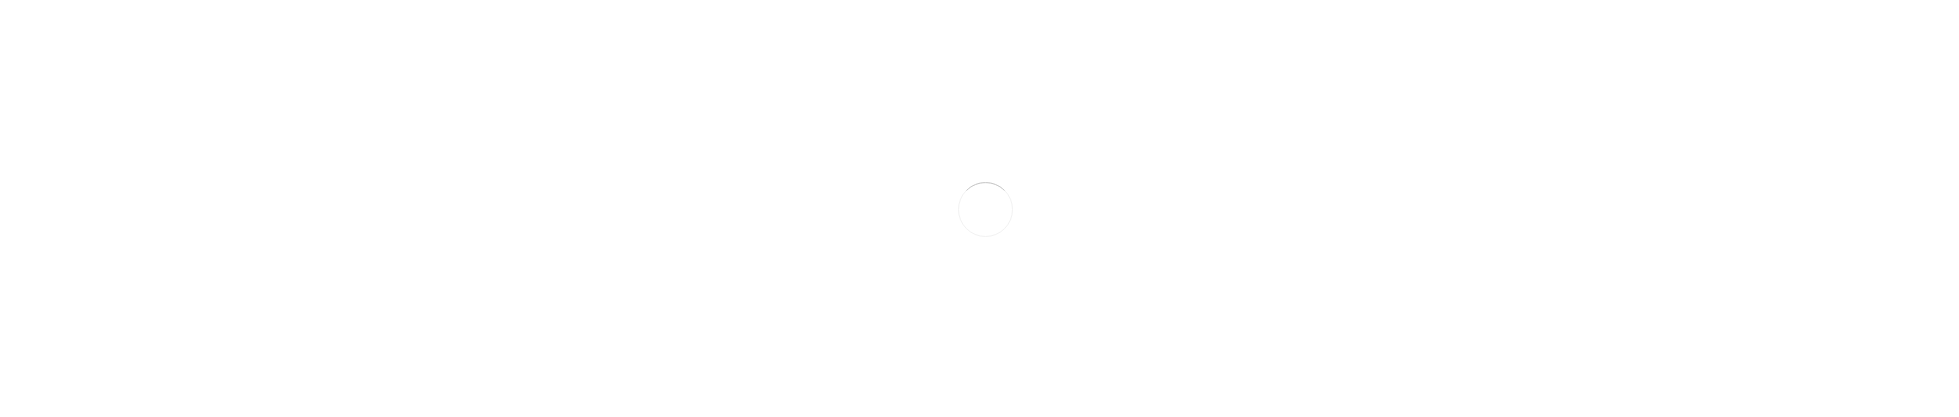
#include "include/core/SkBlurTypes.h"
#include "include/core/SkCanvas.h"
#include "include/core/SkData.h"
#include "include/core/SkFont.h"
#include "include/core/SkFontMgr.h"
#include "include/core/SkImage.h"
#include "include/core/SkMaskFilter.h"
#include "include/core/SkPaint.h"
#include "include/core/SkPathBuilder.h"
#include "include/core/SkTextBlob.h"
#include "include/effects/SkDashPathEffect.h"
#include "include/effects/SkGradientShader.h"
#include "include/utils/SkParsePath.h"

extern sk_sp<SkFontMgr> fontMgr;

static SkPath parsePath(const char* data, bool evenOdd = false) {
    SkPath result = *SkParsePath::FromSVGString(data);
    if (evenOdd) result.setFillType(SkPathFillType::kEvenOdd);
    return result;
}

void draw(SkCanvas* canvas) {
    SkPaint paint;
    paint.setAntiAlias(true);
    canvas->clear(0xFFFFFFFF);
    paint.setStroke(true);
    paint.setStrokeWidth(1);
    paint.setColor(0xFFF2F2F2);
    canvas->drawCircle(985.5f, 209.5f, 27, paint);
    paint.setColor(0xFFC7C7C7);
    canvas->drawPath(parsePath("M966.5 190.5C977 180 994 180 1004.5 190.5"), paint);
}
